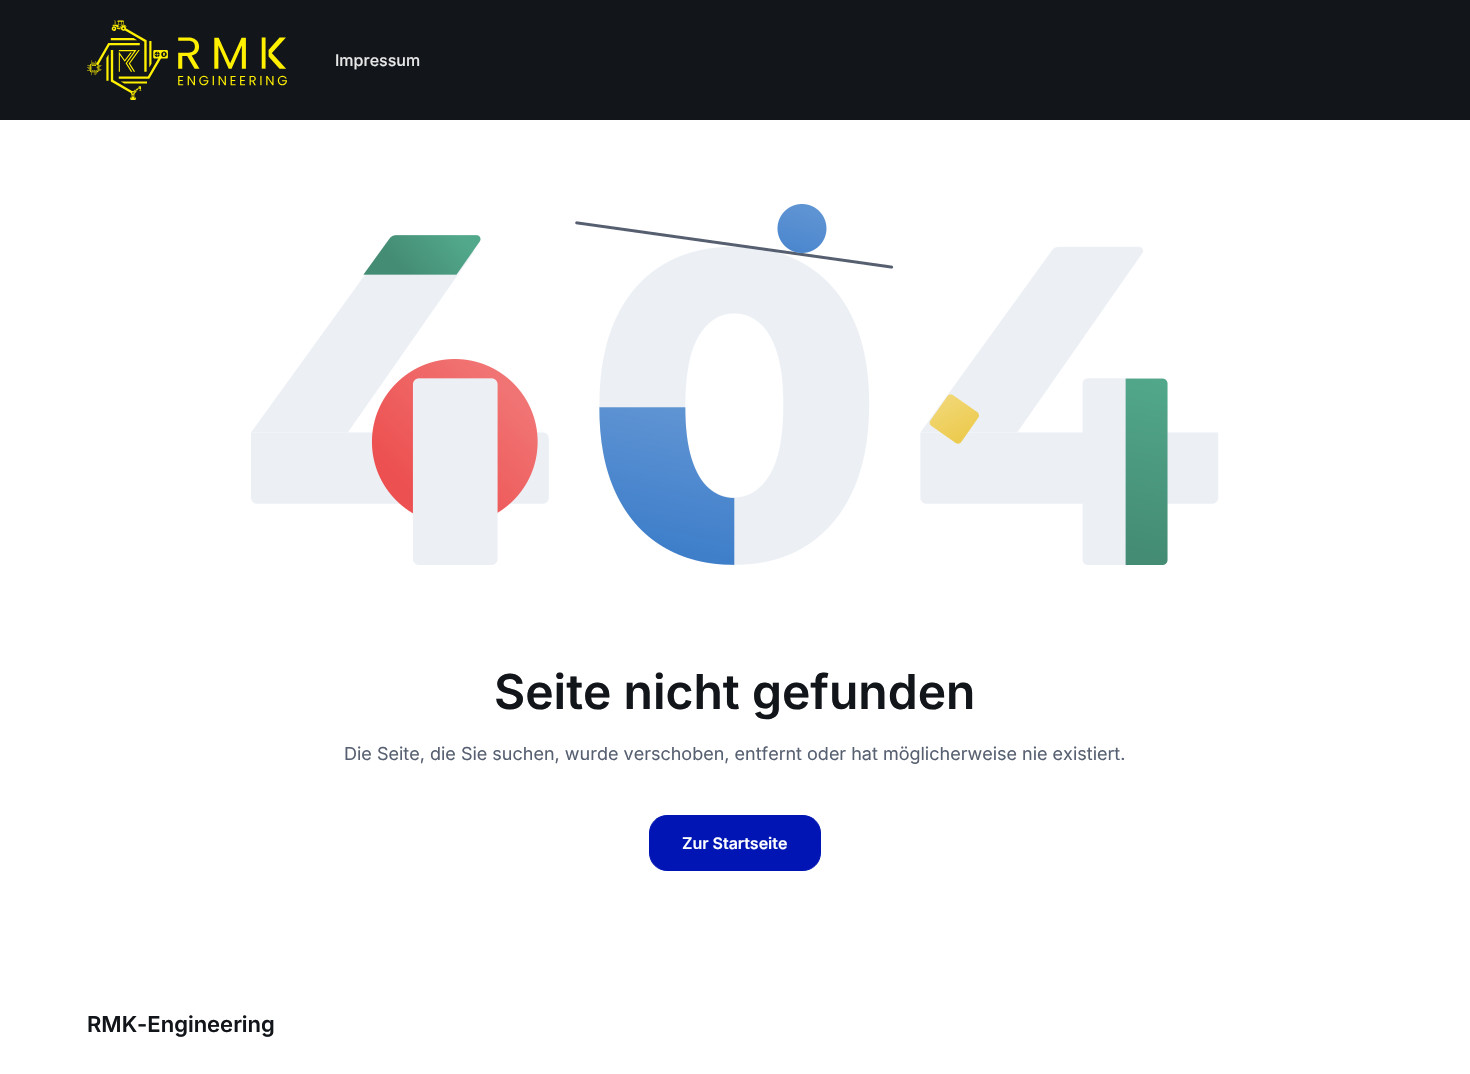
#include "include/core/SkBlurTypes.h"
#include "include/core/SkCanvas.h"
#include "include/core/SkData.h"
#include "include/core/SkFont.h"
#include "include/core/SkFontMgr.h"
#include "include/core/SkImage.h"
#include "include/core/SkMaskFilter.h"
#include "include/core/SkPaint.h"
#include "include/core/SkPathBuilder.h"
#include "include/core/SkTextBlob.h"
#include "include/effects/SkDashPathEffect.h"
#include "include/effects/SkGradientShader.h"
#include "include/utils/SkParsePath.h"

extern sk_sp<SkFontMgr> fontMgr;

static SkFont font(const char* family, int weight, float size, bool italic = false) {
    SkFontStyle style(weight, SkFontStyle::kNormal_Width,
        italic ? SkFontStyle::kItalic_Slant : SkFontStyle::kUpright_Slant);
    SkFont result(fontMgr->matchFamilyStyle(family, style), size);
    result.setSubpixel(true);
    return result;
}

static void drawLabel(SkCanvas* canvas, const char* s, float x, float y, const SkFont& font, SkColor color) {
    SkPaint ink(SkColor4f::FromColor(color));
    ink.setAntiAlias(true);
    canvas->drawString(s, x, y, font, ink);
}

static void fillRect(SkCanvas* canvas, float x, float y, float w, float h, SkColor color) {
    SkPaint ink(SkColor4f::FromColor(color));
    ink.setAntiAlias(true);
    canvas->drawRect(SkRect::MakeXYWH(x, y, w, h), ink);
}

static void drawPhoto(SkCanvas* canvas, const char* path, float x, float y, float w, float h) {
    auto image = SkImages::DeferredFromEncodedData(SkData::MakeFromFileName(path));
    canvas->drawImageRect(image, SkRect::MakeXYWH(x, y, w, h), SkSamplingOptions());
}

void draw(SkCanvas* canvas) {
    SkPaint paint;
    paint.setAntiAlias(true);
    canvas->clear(0xFFFFFFFF);
    fillRect(canvas, 0, 0, 1470, 120, 0xFF121519);
    drawPhoto(canvas, "assets/img1.png", 87, 20, 200, 80);
    SkFont font1 = font("Inter", 500, 16);
    drawLabel(canvas, "Impressum", 335, 66, font1, 0xFFE7E8E8);
    drawPhoto(canvas, "assets/img2.png", 251, 204, 968, 361);
    SkFont font2 = font("Inter", 600, 48);
    drawLabel(canvas, "Seite nicht gefunden", 494, 709, font2, 0xFF121519);
    SkFont font3 = font("Inter", 400, 18);
    drawLabel(canvas, "Die Seite, die Sie suchen, wurde verschoben, entfernt oder hat möglicherweise nie existiert.", 344, 760, font3, 0xFF576071);
    paint.setColor(0xFF0015B3);
    canvas->drawRoundRect(SkRect::MakeXYWH(649.5f, 815.5f, 171, 55), 17.5f, 17.5f, paint);
    paint.setStroke(true);
    paint.setStrokeWidth(1);
    canvas->drawRoundRect(SkRect::MakeXYWH(649.5f, 815.5f, 171, 55), 17.5f, 17.5f, paint);
    SkFont font4 = font("Inter", 600, 16);
    drawLabel(canvas, "Zur Startseite", 682, 849, font4, 0xFFFFFFFF);
    SkFont font5 = font("Inter", 600, 22);
    drawLabel(canvas, "RMK-Engineering", 87, 1032, font5, 0xFF121519);
}
